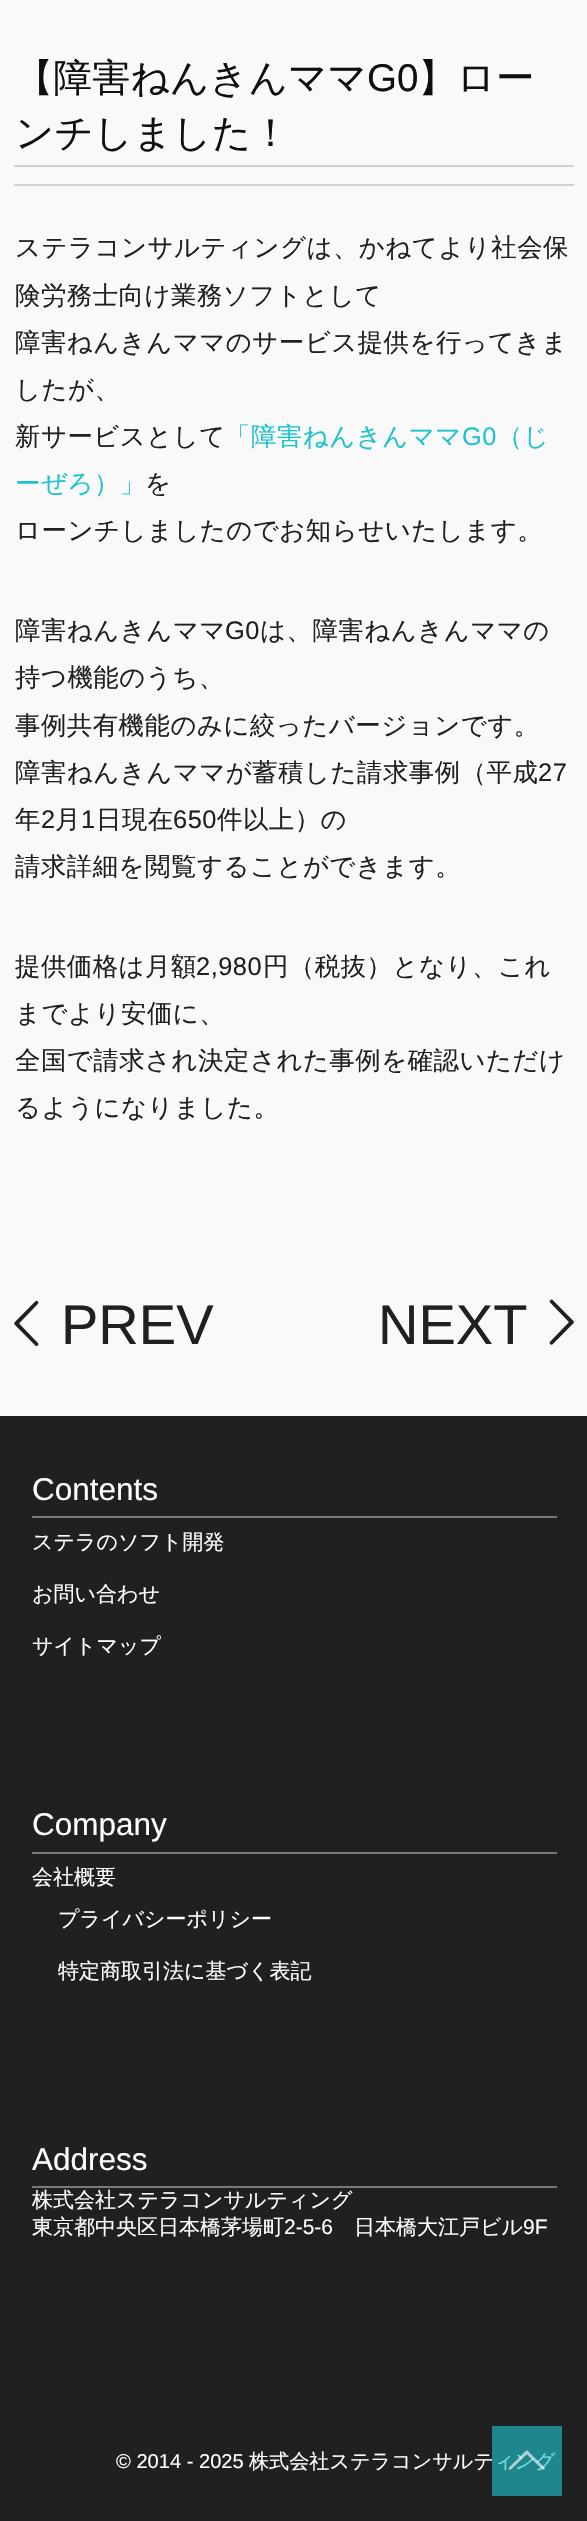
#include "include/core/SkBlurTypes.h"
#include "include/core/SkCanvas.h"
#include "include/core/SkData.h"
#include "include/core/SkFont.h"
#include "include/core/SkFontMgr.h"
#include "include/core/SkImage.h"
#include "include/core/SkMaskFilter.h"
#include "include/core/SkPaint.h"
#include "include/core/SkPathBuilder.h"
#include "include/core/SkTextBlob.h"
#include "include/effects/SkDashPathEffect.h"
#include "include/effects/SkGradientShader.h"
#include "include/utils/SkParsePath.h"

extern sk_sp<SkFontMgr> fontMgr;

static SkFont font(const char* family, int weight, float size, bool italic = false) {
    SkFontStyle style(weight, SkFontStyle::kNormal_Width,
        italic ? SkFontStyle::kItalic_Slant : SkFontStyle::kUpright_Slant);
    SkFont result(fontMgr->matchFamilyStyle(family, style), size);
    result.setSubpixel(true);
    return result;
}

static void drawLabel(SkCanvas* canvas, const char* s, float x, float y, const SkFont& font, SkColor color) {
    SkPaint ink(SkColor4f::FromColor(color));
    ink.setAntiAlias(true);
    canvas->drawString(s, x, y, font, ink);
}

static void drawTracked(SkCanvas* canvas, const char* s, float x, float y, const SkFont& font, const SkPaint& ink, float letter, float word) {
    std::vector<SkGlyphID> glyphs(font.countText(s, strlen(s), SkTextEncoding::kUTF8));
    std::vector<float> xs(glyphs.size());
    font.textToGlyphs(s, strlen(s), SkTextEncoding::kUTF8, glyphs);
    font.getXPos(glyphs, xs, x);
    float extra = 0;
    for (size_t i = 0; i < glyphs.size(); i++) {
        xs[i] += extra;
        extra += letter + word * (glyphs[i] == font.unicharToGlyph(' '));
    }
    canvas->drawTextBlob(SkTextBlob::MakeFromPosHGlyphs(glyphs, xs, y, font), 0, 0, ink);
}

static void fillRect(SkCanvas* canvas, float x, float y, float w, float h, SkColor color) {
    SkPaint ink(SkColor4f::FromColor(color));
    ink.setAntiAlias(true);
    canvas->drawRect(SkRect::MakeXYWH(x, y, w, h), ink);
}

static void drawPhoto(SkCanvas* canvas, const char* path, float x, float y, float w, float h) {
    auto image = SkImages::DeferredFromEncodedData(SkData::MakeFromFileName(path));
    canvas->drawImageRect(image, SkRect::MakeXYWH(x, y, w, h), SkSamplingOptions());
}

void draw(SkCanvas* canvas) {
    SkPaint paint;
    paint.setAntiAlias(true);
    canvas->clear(0xFFF9F9F9);
    fillRect(canvas, 14, 165, 560, 2, 0xFFD2D2D2);
    SkFont font1 = font("WenQuanYi Zen Hei", 500, 38.5f);
    drawLabel(canvas, "【障害ねんきんママ", 15, 91, font1, 0xFF0F0F0F);
    SkFont font2 = font("Liberation Sans", 400, 38.5f);
    drawLabel(canvas, "G0", 367, 91, font2, 0xFF0F0F0F);
    drawLabel(canvas, "】ロー", 418, 91, font1, 0xFF0F0F0F);
    drawLabel(canvas, "ンチしました！", 15, 146, font1, 0xFF0F0F0F);
    fillRect(canvas, 14, 184, 560, 2, 0xFFD2D2D2);
    SkFont font3 = font("WenQuanYi Zen Hei", 500, 25.4f);
    paint.setColor(0xFF202020);
    drawTracked(canvas, "ステラコンサルティングは、かねてより社会保", 15, 256, font3, paint, 0.5f, 0);
    drawTracked(canvas, "険労務士向け業務ソフトとして", 15, 304, font3, paint, 0.5f, 0);
    drawTracked(canvas, "障害ねんきんママのサービス提供を行ってきま", 15, 351, font3, paint, 0.5f, 0);
    drawTracked(canvas, "したが、", 15, 398, font3, paint, 0.5f, 0);
    drawTracked(canvas, "新サービスとして", 15, 445, font3, paint, 0.5f, 0);
    paint.setColor(0xFF1EC3CE);
    drawTracked(canvas, "「障害ねんきんママ", 225, 445, font3, paint, 0.5f, 0);
    SkFont font4 = font("Liberation Sans", 400, 25.4f);
    drawTracked(canvas, "G0", 462, 445, font4, paint, 0.5f, 0);
    drawTracked(canvas, "（じ", 497, 445, font3, paint, 0.5f, 0);
    drawTracked(canvas, "ーぜろ）」", 15, 492, font3, paint, 0.5f, 0);
    paint.setColor(0xFF202020);
    drawTracked(canvas, "を", 145, 492, font3, paint, 0.5f, 0);
    drawTracked(canvas, "ローンチしましたのでお知らせいたします。", 15, 539, font3, paint, 0.5f, 0);
    drawTracked(canvas, "障害ねんきんママ", 15, 639, font3, paint, 0.5f, 0);
    drawTracked(canvas, "G0", 225, 639, font4, paint, 0.5f, 0);
    drawTracked(canvas, "は、障害ねんきんママの", 260, 639, font3, paint, 0.5f, 0);
    drawTracked(canvas, "持つ機能のうち、", 15, 686, font3, paint, 0.5f, 0);
    drawTracked(canvas, "事例共有機能のみに絞ったバージョンです。", 15, 734, font3, paint, 0.5f, 0);
    drawTracked(canvas, "障害ねんきんママが蓄積した請求事例（平成", 15, 781, font3, paint, 0.5f, 0);
    drawTracked(canvas, "27", 538, 781, font4, paint, 0.5f, 0);
    drawTracked(canvas, "年", 15, 828, font3, paint, 0.5f, 0);
    drawTracked(canvas, "2", 41, 828, font4, paint, 0.5f, 0);
    drawTracked(canvas, "月", 55, 828, font3, paint, 0.5f, 0);
    drawTracked(canvas, "1", 81, 828, font4, paint, 0.5f, 0);
    drawTracked(canvas, "日現在", 96, 828, font3, paint, 0.5f, 0);
    drawTracked(canvas, "650", 173, 828, font4, paint, 0.5f, 0);
    drawTracked(canvas, "件以上）の", 217, 828, font3, paint, 0.5f, 0);
    drawTracked(canvas, "請求詳細を閲覧することができます。", 15, 875, font3, paint, 0.5f, 0);
    drawTracked(canvas, "提供価格は月額", 15, 975, font3, paint, 0.5f, 0);
    drawTracked(canvas, "2,980", 196, 975, font4, paint, 0.5f, 0);
    drawTracked(canvas, "円（税抜）となり、これ", 263, 975, font3, paint, 0.5f, 0);
    drawTracked(canvas, "までより安価に、", 15, 1022, font3, paint, 0.5f, 0);
    drawTracked(canvas, "全国で請求され決定された事例を確認いただけ", 15, 1069, font3, paint, 0.5f, 0);
    drawTracked(canvas, "るようになりました。", 15, 1116, font3, paint, 0.5f, 0);
    drawPhoto(canvas, "assets/img1.png", 14, 1300, 25, 46);
    SkFont font5 = font("Liberation Sans", 400, 56);
    drawLabel(canvas, "PREV", 61, 1344, font5, 0xFF202020);
    drawLabel(canvas, "NEXT", 378, 1344, font5, 0xFF202020);
    drawPhoto(canvas, "assets/img2.png", 549, 1299, 25, 46);
    fillRect(canvas, 0, 1416, 587, 1105, 0xFF202020);
    fillRect(canvas, 32, 1516, 525, 2, 0xFF797979);
    SkFont font6 = font("Liberation Sans", 400, 31.5f);
    drawLabel(canvas, "Contents", 32, 1500, font6, 0xFFFFFFFF);
    SkFont font7 = font("WenQuanYi Zen Hei", 500, 21);
    drawLabel(canvas, "ステラのソフト開発", 32, 1549, font7, 0xFFFFFFFF);
    drawLabel(canvas, "お問い合わせ", 32, 1601, font7, 0xFFFFFFFF);
    drawLabel(canvas, "サイトマップ", 32, 1653, font7, 0xFFFFFFFF);
    fillRect(canvas, 32, 1852, 525, 2, 0xFF797979);
    drawLabel(canvas, "Company", 32, 1835, font6, 0xFFFFFFFF);
    drawLabel(canvas, "会社概要", 32, 1884, font7, 0xFFFFFFFF);
    drawLabel(canvas, "プライバシーポリシー", 58, 1926, font7, 0xFFFFFFFF);
    drawLabel(canvas, "特定商取引法に基づく表記", 58, 1978, font7, 0xFFFFFFFF);
    fillRect(canvas, 32, 2186, 525, 2, 0xFF797979);
    drawLabel(canvas, "Address", 32, 2170, font6, 0xFFFFFFFF);
    drawLabel(canvas, "株式会社ステラコンサルティング", 32, 2207, font7, 0xFFFFFFFF);
    drawLabel(canvas, "東京都中央区日本橋茅場町", 32, 2234, font7, 0xFFFFFFFF);
    SkFont font8 = font("Liberation Sans", 400, 21);
    drawLabel(canvas, "2-5-6", 284, 2234, font8, 0xFFFFFFFF);
    drawLabel(canvas, "日本橋大江戸ビル", 354, 2234, font7, 0xFFFFFFFF);
    drawLabel(canvas, "9F", 523, 2234, font8, 0xFFFFFFFF);
    SkFont font9 = font("Liberation Sans", 400, 20.1f);
    drawLabel(canvas, "© 2014 - 2025", 116, 2468, font9, 0xFFFFFFFF);
    SkFont font10 = font("WenQuanYi Zen Hei", 500, 20.1f);
    drawLabel(canvas, "株式会社ステラコンサルティング", 249, 2468, font10, 0xFFFFFFFF);
    fillRect(canvas, 492, 2426, 70, 70, 0x9E1EC3CE);
    drawPhoto(canvas, "assets/img3.png", 508, 2450, 37, 20);
}
